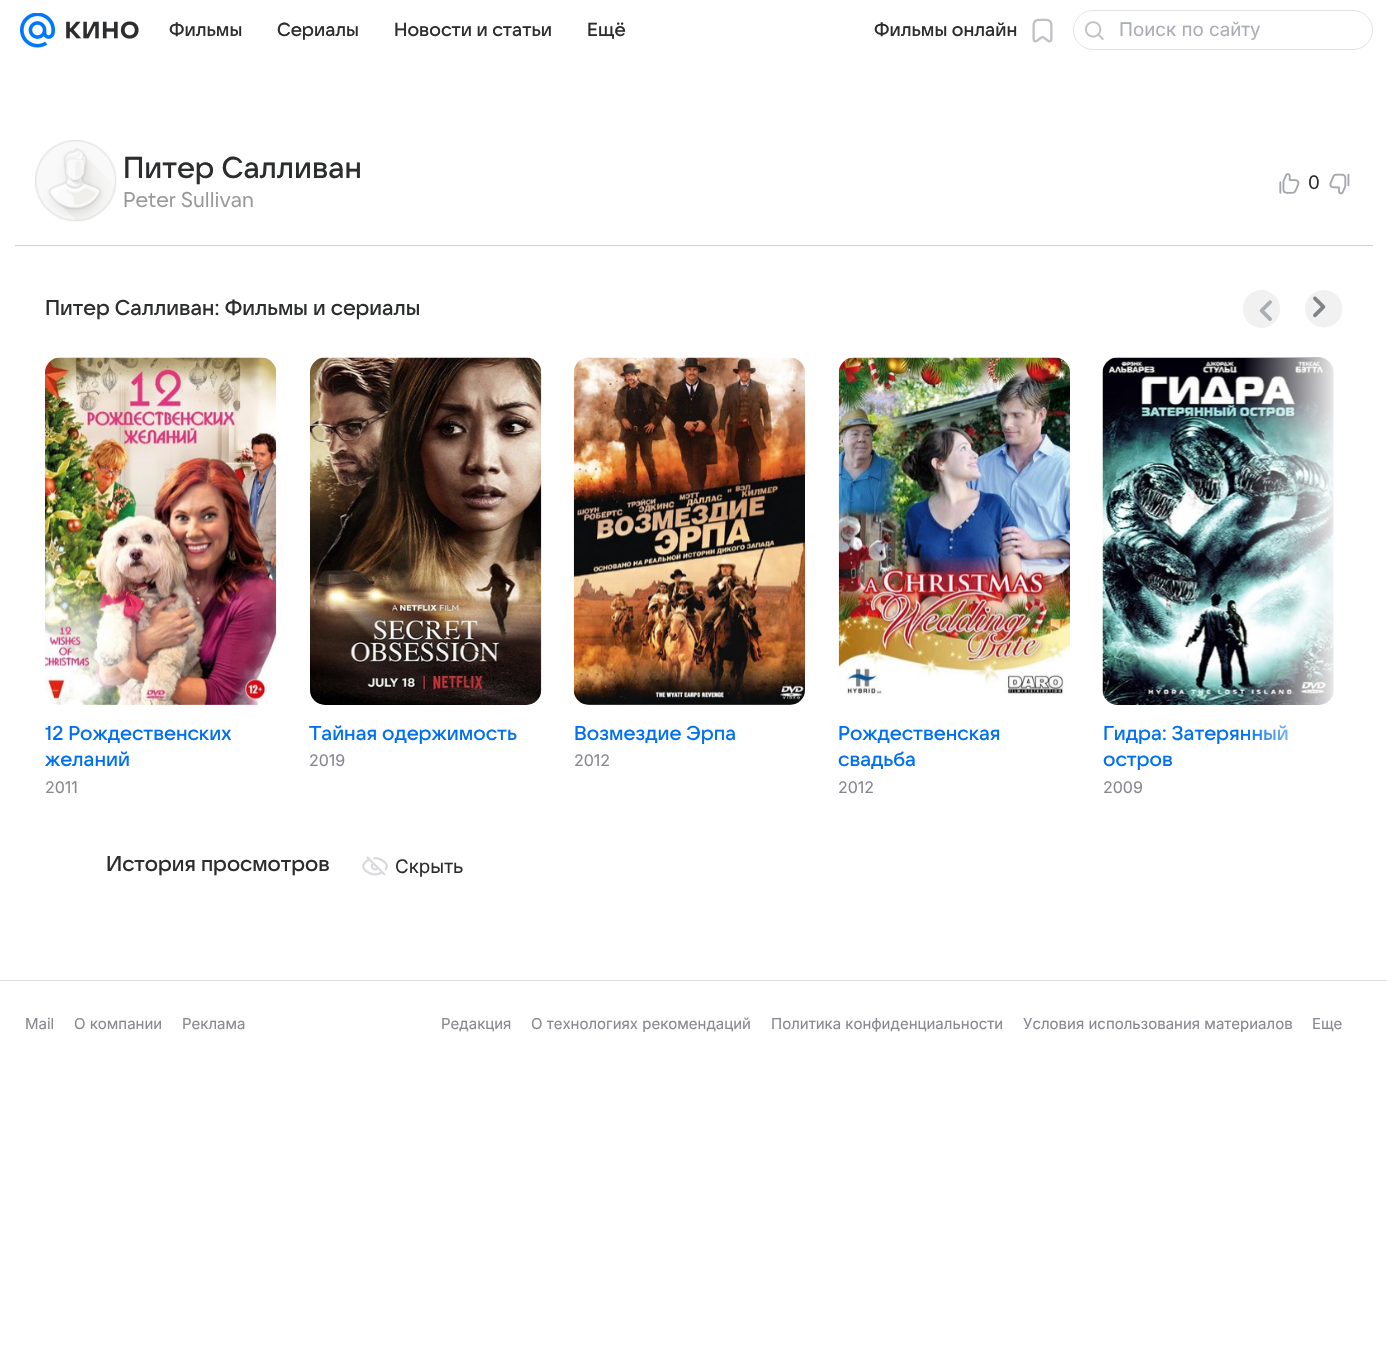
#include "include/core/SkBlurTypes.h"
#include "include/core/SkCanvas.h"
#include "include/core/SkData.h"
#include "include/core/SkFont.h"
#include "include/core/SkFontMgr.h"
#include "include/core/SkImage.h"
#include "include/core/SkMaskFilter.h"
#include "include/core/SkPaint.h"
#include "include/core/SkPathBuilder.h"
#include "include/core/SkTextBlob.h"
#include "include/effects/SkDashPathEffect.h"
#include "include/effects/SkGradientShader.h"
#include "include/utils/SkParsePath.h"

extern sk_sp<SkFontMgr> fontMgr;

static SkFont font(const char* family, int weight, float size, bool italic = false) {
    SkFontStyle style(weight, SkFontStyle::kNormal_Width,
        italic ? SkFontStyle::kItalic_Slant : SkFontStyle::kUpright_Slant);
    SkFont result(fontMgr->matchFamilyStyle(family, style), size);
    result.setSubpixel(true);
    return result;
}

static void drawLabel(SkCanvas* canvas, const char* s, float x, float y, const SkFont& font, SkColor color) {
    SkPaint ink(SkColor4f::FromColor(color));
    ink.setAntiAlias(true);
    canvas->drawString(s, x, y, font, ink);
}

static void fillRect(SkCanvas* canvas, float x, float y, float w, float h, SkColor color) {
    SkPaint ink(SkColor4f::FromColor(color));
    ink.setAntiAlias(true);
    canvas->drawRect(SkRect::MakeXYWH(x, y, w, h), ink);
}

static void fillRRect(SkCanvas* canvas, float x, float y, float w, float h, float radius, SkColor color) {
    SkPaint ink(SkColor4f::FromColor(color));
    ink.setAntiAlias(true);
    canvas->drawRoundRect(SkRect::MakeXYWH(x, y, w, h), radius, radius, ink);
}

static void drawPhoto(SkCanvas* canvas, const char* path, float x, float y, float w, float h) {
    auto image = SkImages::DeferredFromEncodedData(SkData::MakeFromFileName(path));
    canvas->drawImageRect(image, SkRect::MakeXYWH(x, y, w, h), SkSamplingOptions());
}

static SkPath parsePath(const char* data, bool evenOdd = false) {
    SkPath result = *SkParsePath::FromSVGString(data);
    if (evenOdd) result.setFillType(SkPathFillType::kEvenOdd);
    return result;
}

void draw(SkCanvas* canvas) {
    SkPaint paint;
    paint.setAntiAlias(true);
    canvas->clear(0xFFFFFFFF);
    drawPhoto(canvas, "assets/img1.png", 20, 13, 35, 35);
    drawPhoto(canvas, "assets/img2.png", 66, 21, 73, 18);
    SkFont font1 = font("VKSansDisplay", 500, 18.75f);
    drawLabel(canvas, "Фильмы", 169, 36, font1, 0xFF2C2D2E);
    drawLabel(canvas, "Сериалы", 277, 36, font1, 0xFF2C2D2E);
    drawLabel(canvas, "Новости и статьи", 394, 36, font1, 0xFF2C2D2E);
    drawLabel(canvas, "Ещё", 587, 36, font1, 0xFF2C2D2E);
    drawLabel(canvas, "Фильмы онлайн", 874, 36, font1, 0xFF2C2D2E);
    drawPhoto(canvas, "assets/img3.png", 1032, 18, 21, 25);
    paint.setStroke(true);
    paint.setStrokeWidth(1);
    paint.setColor(0xFFE0E2E8);
    canvas->drawRoundRect(SkRect::MakeXYWH(1073.5f, 10.5f, 299, 39), 19.5f, 19.5f, paint);
    drawPhoto(canvas, "assets/img4.png", 1085, 21, 19, 19);
    SkFont font2 = font("Inter", 400, 18.75f);
    drawLabel(canvas, "Поиск по сайту", 1119, 36, font2, 0xFFAAADB3);
    fillRect(canvas, 15, 245, 1358, 1, 0xFFD1D1D1);
    drawPhoto(canvas, "assets/img5.png", 35, 140, 82, 82);
    SkFont font3 = font("VKSansDisplay", 500, 30);
    drawLabel(canvas, "Питер Салливан", 123, 178, font3, 0xFF2C2D2E);
    SkFont font4 = font("VKSansDisplay", 400, 21.25f);
    drawLabel(canvas, "Peter Sullivan", 123, 207, font4, 0xFF999999);
    drawPhoto(canvas, "assets/img6.png", 1279, 173, 21, 21);
    drawLabel(canvas, "0", 1308, 189, font2, 0xFF2C2D2E);
    drawPhoto(canvas, "assets/img7.png", 1329, 173, 21, 22);
    SkFont font5 = font("VKSansDisplay", 500, 21.25f);
    drawLabel(canvas, "Питер Салливан: Фильмы и сериалы", 45, 315, font5, 0xFF2C2D2E);
    fillRRect(canvas, 1243, 290, 37, 38, 18.5f, 0xFFF1F1F1);
    drawPhoto(canvas, "assets/img8.png", 1259, 300, 13, 21);
    paint.setStroke(false);
    paint.setColor(0xFFF1F1F1);
    canvas->drawPath(parsePath("M1324 327.5C1313.5 327.5 1305 319 1305 309C1305 298.5 1313.5 290 1324 290C1334 290 1342.5 298.5 1342.5 309C1342.5 319 1334 327.5 1324 327.5Z"), paint);
    drawPhoto(canvas, "assets/img9.png", 1313, 296, 13, 22);
    drawPhoto(canvas, "assets/img14.png", 1102, 357, 232, 348);
    SkFont font6 = font("VKSansDisplay", 500, 20);
    drawLabel(canvas, "Гидра: Затерянный", 1103, 740, font6, 0xFF0070F0);
    {
        const SkColor colors[] = {0x00FFFFFF, 0xFFFFFFFF};
        const float stops[] = {0, 1};
        const SkPoint ends[] = {{1243, 578}, {1343, 578}};
        paint.setShader(SkGradientShader::MakeLinear(ends, colors, stops, 2, SkTileMode::kClamp));
        paint.setAlpha(255);
    }
    canvas->drawRect(SkRect::MakeXYWH(1245, 358, 89, 382), paint);
    drawPhoto(canvas, "assets/img10.png", 45, 357, 232, 348);
    drawLabel(canvas, "12 Рождественских", 45, 740, font6, 0xFF0070F0);
    drawLabel(canvas, "желаний", 45, 766, font6, 0xFF0070F0);
    SkFont font7 = font("Inter", 400, 16);
    drawLabel(canvas, "2011", 45, 793, font7, 0xFF87898F);
    drawPhoto(canvas, "assets/img11.png", 310, 357, 232, 348);
    drawLabel(canvas, "Тайная одержимость", 309, 740, font6, 0xFF0070F0);
    drawLabel(canvas, "2019", 309, 766, font7, 0xFF87898F);
    drawPhoto(canvas, "assets/img12.png", 573, 357, 232, 348);
    drawLabel(canvas, "Возмездие Эрпа", 574, 740, font6, 0xFF0070F0);
    drawLabel(canvas, "2012", 574, 766, font7, 0xFF87898F);
    drawPhoto(canvas, "assets/img13.png", 838, 357, 232, 338);
    drawLabel(canvas, "Рождественская", 838, 740, font6, 0xFF0070F0);
    drawLabel(canvas, "свадьба", 838, 766, font6, 0xFF0070F0);
    drawLabel(canvas, "2012", 838, 793, font7, 0xFF87898F);
    drawLabel(canvas, "остров", 1103, 766, font6, 0xFF0070F0);
    drawLabel(canvas, "2009", 1103, 793, font7, 0xFF87898F);
    drawLabel(canvas, "История просмотров", 106, 871, font5, 0xFF2C2D2E);
    drawPhoto(canvas, "assets/img15.png", 362, 856, 26, 20);
    drawLabel(canvas, "Скрыть", 395, 873, font2, 0xFF2C2D2E);
    fillRect(canvas, 0, 980, 1387, 1, 0xFFE0E2E8);
    SkFont font8 = font("Inter", 400, 15);
    drawLabel(canvas, "Mail", 25, 1029, font8, 0xFF87898F);
    drawLabel(canvas, "О компании", 74, 1029, font8, 0xFF87898F);
    drawLabel(canvas, "Реклама", 182, 1029, font8, 0xFF87898F);
    drawLabel(canvas, "Редакция", 441, 1029, font8, 0xFF87898F);
    drawLabel(canvas, "О технологиях рекомендаций", 531, 1029, font8, 0xFF87898F);
    drawLabel(canvas, "Политика конфиденциальности", 771, 1029, font8, 0xFF87898F);
    drawLabel(canvas, "Условия использования материалов", 1023, 1029, font8, 0xFF87898F);
    drawLabel(canvas, "Еще", 1312, 1029, font8, 0xFF87898F);
}
